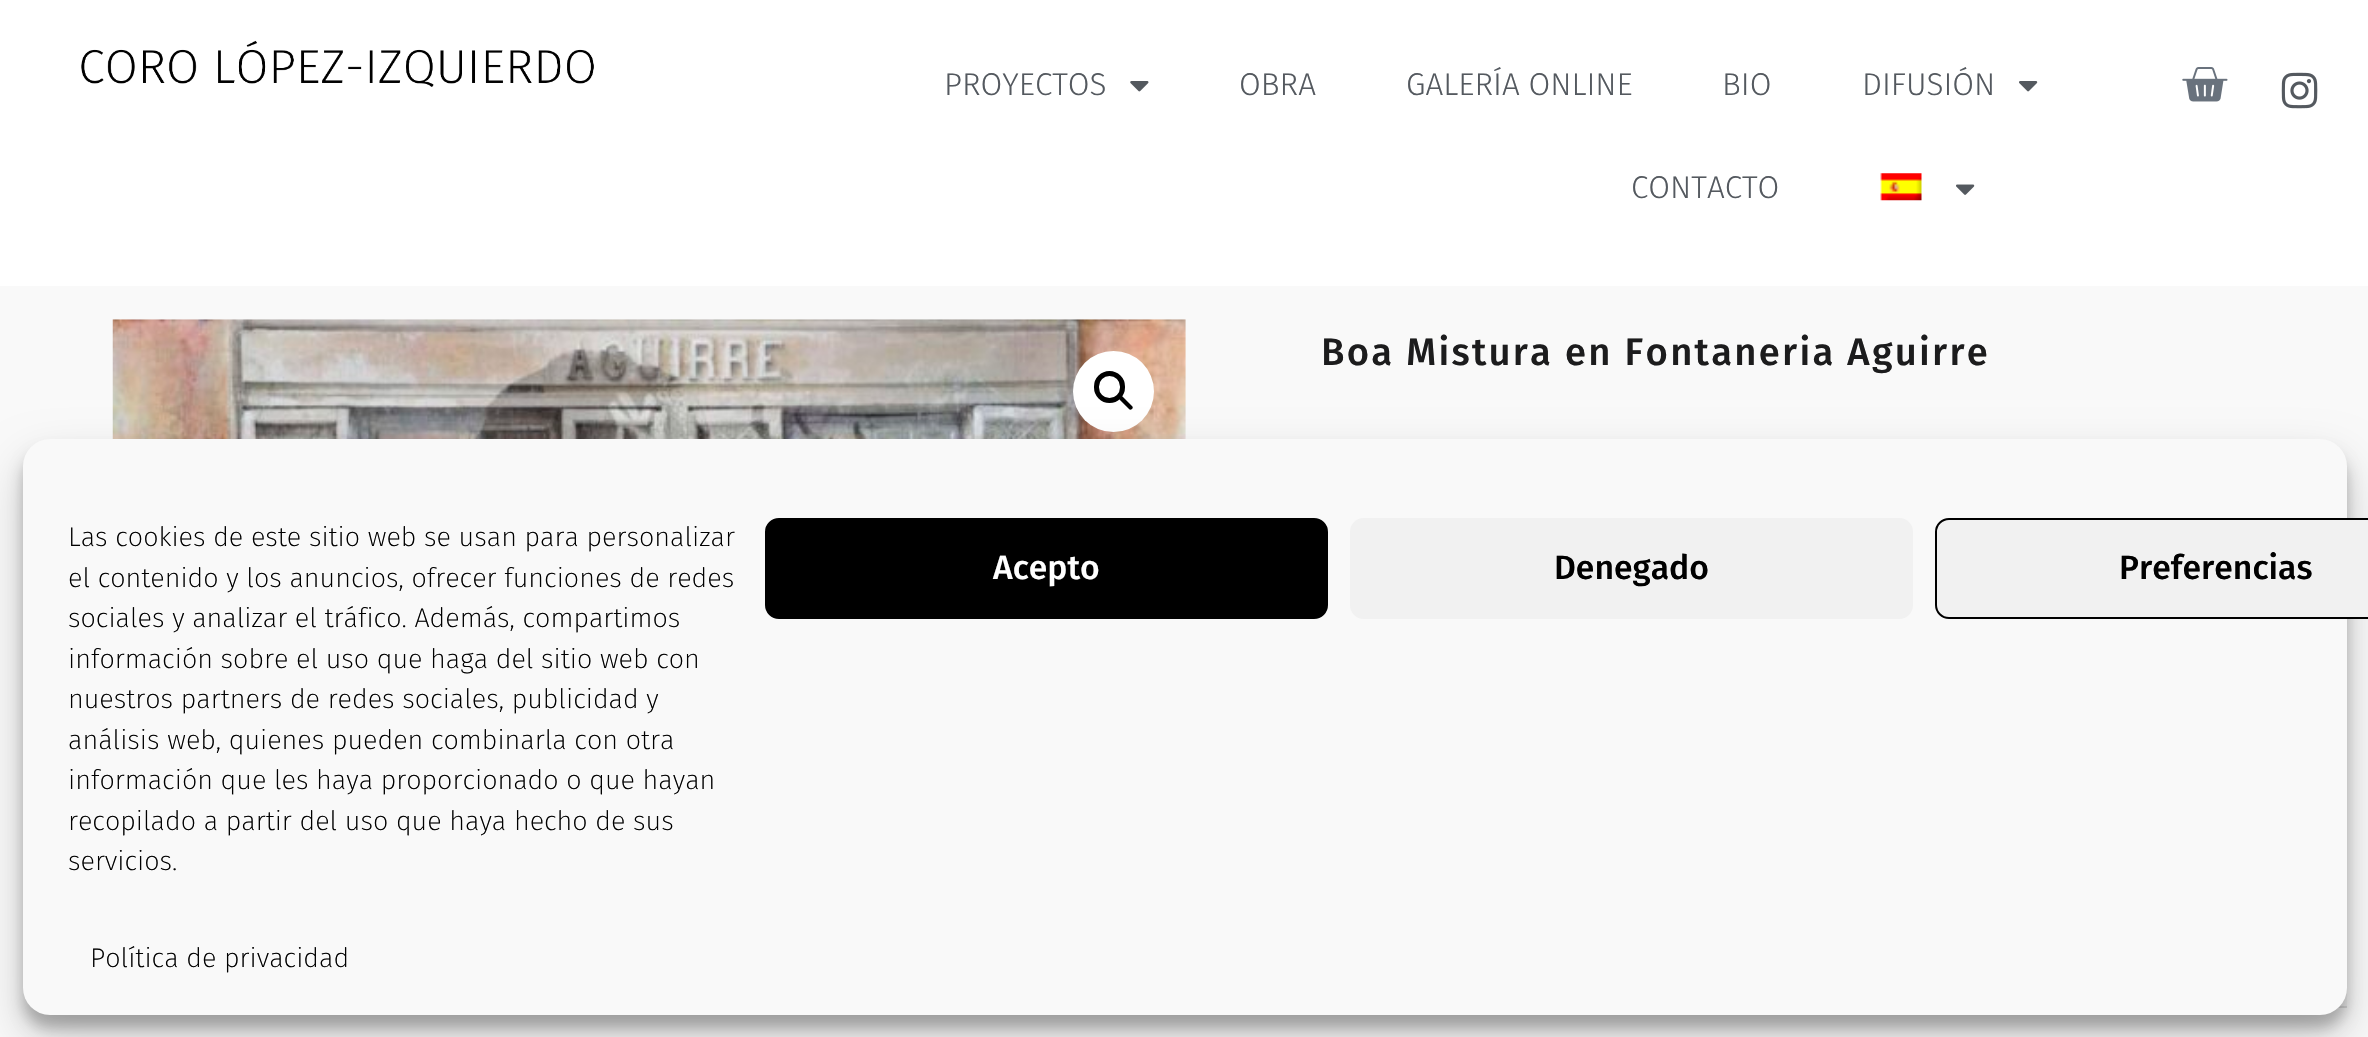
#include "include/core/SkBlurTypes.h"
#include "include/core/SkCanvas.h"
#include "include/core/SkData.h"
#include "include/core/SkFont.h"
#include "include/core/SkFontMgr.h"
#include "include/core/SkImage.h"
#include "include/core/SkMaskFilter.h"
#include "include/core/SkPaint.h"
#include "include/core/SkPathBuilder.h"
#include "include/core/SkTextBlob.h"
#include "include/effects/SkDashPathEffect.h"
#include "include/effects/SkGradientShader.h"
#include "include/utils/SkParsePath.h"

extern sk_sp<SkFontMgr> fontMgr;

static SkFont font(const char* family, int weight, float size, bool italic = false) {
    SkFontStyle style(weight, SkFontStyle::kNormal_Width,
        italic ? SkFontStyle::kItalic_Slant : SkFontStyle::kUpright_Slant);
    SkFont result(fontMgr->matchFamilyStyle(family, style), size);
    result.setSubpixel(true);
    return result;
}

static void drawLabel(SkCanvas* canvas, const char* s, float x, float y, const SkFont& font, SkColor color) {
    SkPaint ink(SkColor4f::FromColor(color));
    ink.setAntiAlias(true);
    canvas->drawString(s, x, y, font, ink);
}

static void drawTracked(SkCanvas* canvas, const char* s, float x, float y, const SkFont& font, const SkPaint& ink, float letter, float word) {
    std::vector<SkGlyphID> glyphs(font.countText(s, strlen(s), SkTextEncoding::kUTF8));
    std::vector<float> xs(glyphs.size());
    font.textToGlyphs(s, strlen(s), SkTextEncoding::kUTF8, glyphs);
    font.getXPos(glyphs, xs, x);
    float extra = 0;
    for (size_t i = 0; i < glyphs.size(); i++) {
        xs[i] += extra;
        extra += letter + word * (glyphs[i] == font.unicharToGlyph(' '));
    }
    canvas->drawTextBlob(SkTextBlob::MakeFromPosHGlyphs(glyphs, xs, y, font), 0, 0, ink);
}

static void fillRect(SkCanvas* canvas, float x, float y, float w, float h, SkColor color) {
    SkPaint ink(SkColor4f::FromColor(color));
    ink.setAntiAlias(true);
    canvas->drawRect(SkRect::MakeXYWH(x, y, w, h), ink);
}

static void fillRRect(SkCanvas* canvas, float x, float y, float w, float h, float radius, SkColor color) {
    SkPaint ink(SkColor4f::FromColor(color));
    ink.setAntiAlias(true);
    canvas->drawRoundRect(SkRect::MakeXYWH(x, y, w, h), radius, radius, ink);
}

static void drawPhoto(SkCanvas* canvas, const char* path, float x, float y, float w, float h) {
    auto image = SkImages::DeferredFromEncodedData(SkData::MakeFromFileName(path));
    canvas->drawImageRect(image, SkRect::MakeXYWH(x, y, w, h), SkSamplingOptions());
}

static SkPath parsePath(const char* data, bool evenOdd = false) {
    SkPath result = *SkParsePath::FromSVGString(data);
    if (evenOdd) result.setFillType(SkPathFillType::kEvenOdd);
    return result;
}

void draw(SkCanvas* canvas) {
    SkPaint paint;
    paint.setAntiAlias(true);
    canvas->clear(0xFFF9F9F9);
    fillRect(canvas, 0, 0, 2368, 286, 0xFFFFFFFF);
    drawPhoto(canvas, "assets/img1.png", 81, 40, 513, 47);
    SkFont font1 = font("Fira Sans", 300, 31.5f);
    drawLabel(canvas, "PROYECTOS", 944, 95, font1, 0xFF54595F);
    drawPhoto(canvas, "assets/img2.png", 1130, 81, 19, 11);
    drawLabel(canvas, "OBRA", 1239, 95, font1, 0xFF54595F);
    drawLabel(canvas, "GALERÍA ONLINE", 1406, 95, font1, 0xFF54595F);
    drawLabel(canvas, "BIO", 1722, 95, font1, 0xFF54595F);
    drawLabel(canvas, "DIFUSIÓN", 1862, 95, font1, 0xFF54595F);
    drawPhoto(canvas, "assets/img3.png", 2019, 81, 19, 11);
    drawLabel(canvas, "CONTACTO", 1631, 198, font1, 0xFF54595F);
    drawPhoto(canvas, "assets/img4.png", 1880, 173, 42, 28);
    drawPhoto(canvas, "assets/img5.png", 1956, 184, 19, 11);
    drawPhoto(canvas, "assets/img6.png", 2182, 67, 46, 35);
    drawPhoto(canvas, "assets/img7.png", 2281, 72, 37, 37);
    drawPhoto(canvas, "assets/img8.png", 112, 319, 1074, 120);
    paint.setColor(0xFFFFFFFF);
    canvas->drawCircle(1113.5f, 391.5f, 40.5f, paint);
    paint.setStroke(true);
    paint.setStrokeWidth(5);
    paint.setColor(0xFF000000);
    canvas->drawRoundRect(SkRect::MakeXYWH(1096.5f, 373.5f, 26, 27), 13, 13, paint);
    paint.setStroke(false);
    canvas->drawPath(parsePath("M1119.5 396.5C1120 395.5 1121.5 395.5 1122.5 396.5L1132 406C1133 407 1133 408 1132 409C1131 410 1129.5 410 1129 409L1119.5 399.5C1118.5 398.5 1118.5 397.5 1119.5 396.5Z"), paint);
    SkFont font2 = font("Fira Sans", 500, 38.25f);
    paint.setColor(0xFF1C1C1D);
    drawTracked(canvas, "Boa Mistura en Fontaneria Aguirre", 1321, 365, font2, paint, 2.25f, 0);
    fillRect(canvas, 2340, 988, 7, 18, 0xFFF3F3F3);
    fillRect(canvas, 2338, 1006, 9, 2, 0xFFDBDBDB);
    paint.setColor(0x3B000000);
    paint.setMaskFilter(SkMaskFilter::MakeBlur(kNormal_SkBlurStyle, 7));
    canvas->drawRoundRect(SkRect::MakeXYWH(23, 452, 2324, 576), 27, 27, paint);
    paint.setMaskFilter(nullptr);
    paint.setColor(0x30000000);
    paint.setMaskFilter(SkMaskFilter::MakeBlur(kNormal_SkBlurStyle, 22.5f));
    canvas->drawRoundRect(SkRect::MakeXYWH(23, 461, 2324, 576), 27, 27, paint);
    paint.setMaskFilter(nullptr);
    fillRRect(canvas, 23, 439, 2324, 576, 27, 0xFFF9F9F9);
    SkFont font3 = font("Fira Sans", 200, 27);
    drawLabel(canvas, "Las cookies de este sitio web se usan para personalizar", 68, 546, font3, 0xFF000000);
    drawLabel(canvas, "el contenido y los anuncios, ofrecer funciones de redes", 68, 587, font3, 0xFF000000);
    drawLabel(canvas, "sociales y analizar el tráfico. Además, compartimos", 68, 627, font3, 0xFF000000);
    drawLabel(canvas, "información sobre el uso que haga del sitio web con", 68, 668, font3, 0xFF000000);
    drawLabel(canvas, "nuestros partners de redes sociales, publicidad y", 68, 708, font3, 0xFF000000);
    drawLabel(canvas, "análisis web, quienes pueden combinarla con otra", 68, 749, font3, 0xFF000000);
    drawLabel(canvas, "información que les haya proporcionado o que hayan", 68, 789, font3, 0xFF000000);
    drawLabel(canvas, "recopilado a partir del uso que haya hecho de sus", 68, 830, font3, 0xFF000000);
    drawLabel(canvas, "servicios.", 68, 870, font3, 0xFF000000);
    paint.setColor(0xFF000000);
    canvas->drawRoundRect(SkRect::MakeXYWH(766, 519, 561, 99), 13, 13, paint);
    paint.setStroke(true);
    paint.setStrokeWidth(2);
    canvas->drawRoundRect(SkRect::MakeXYWH(766, 519, 561, 99), 13, 13, paint);
    SkFont font4 = font("Fira Sans", 500, 33.75f);
    drawLabel(canvas, "Acepto", 993, 579, font4, 0xFFFFFFFF);
    fillRRect(canvas, 1350, 518, 563, 101, 14, 0xFFF1F1F1);
    drawLabel(canvas, "Denegado", 1554, 579, font4, 0xFF000000);
    paint.setStroke(false);
    paint.setColor(0xFFF1F1F1);
    canvas->drawRoundRect(SkRect::MakeXYWH(1936, 519, 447, 99), 13, 13, paint);
    paint.setStroke(true);
    paint.setColor(0xFF000000);
    canvas->drawRoundRect(SkRect::MakeXYWH(1936, 519, 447, 99), 13, 13, paint);
    drawLabel(canvas, "Preferencias", 2119, 579, font4, 0xFF000000);
    drawLabel(canvas, "Política de privacidad", 90, 967, font3, 0xFF000000);
}
